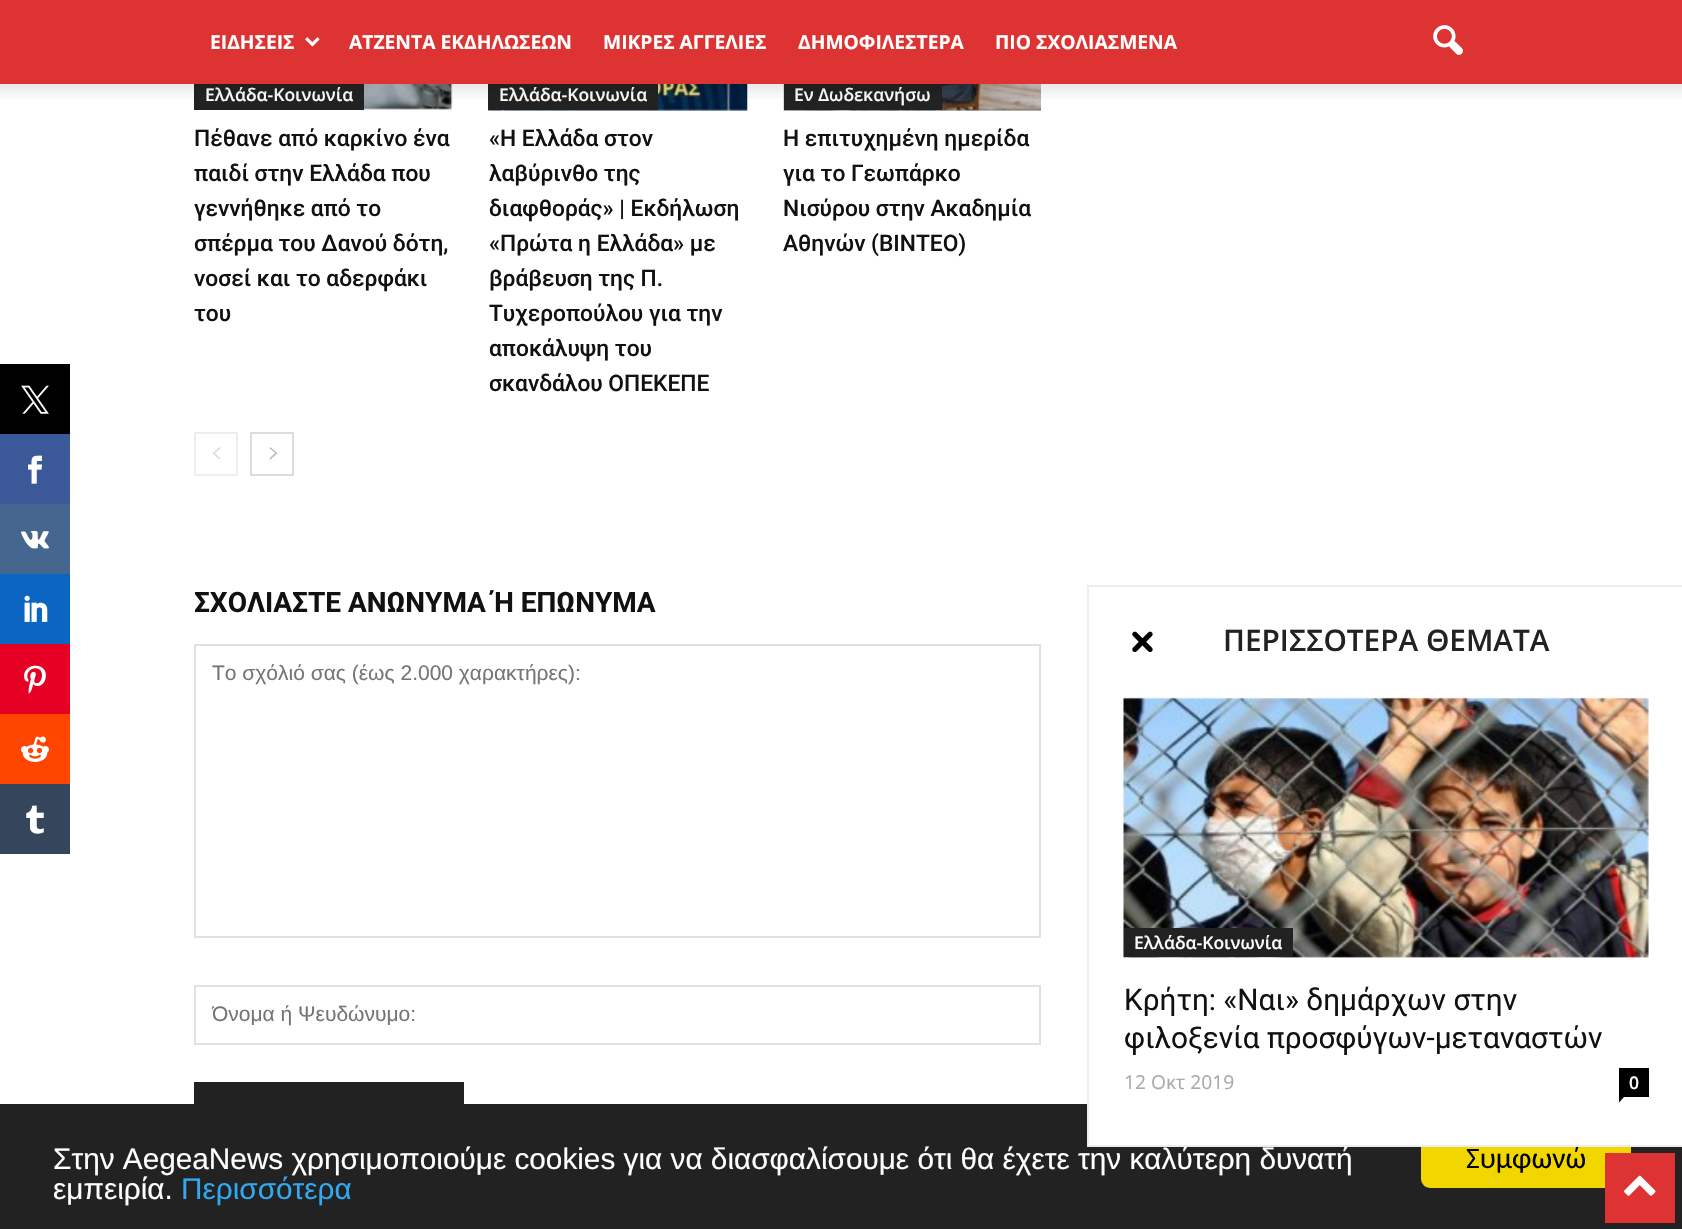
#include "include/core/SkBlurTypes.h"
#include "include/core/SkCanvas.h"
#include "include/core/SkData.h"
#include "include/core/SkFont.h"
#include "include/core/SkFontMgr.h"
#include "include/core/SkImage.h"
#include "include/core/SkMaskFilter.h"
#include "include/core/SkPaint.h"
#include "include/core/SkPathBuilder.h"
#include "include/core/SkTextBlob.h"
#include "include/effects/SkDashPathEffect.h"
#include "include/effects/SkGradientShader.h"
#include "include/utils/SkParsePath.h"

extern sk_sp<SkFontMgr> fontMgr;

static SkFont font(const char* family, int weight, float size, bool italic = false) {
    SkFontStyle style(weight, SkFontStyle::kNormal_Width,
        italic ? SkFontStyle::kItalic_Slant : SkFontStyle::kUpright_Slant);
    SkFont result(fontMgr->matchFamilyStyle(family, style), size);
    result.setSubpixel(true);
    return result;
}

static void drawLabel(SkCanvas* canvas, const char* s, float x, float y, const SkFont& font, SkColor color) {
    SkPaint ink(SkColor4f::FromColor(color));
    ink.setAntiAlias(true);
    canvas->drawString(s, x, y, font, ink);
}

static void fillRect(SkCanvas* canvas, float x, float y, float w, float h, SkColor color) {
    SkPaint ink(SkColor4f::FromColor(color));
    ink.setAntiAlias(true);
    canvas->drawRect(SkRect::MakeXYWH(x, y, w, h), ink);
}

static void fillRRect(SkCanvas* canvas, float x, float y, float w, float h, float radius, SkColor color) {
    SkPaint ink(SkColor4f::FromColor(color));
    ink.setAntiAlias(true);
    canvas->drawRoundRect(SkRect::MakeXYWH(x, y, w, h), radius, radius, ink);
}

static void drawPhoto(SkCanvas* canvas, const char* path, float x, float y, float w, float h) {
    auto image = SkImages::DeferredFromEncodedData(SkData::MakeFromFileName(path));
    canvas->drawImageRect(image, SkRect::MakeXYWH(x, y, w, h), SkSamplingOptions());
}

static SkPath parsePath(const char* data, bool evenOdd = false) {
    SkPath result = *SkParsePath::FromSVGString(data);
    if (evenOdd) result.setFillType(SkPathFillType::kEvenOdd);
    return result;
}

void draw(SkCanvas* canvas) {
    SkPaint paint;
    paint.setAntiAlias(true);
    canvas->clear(0xFFFFFFFF);
    fillRect(canvas, 0, 364, 70, 70, 0xFF000000);
    drawPhoto(canvas, "assets/img1.png", 21, 385, 28, 29);
    fillRect(canvas, 0, 434, 70, 70, 0xFF3B5998);
    drawPhoto(canvas, "assets/img2.png", 28, 455, 15, 29);
    fillRect(canvas, 0, 504, 70, 70, 0xFF45668E);
    drawPhoto(canvas, "assets/img3.png", 21, 530, 28, 19);
    fillRect(canvas, 0, 574, 70, 70, 0xFF0A66C2);
    drawPhoto(canvas, "assets/img4.png", 24, 595, 24, 27);
    fillRect(canvas, 0, 644, 70, 70, 0xFFE60023);
    drawPhoto(canvas, "assets/img5.png", 24, 665, 22, 29);
    fillRect(canvas, 0, 714, 70, 70, 0xFFFF4500);
    drawPhoto(canvas, "assets/img6.png", 21, 736, 28, 26);
    fillRect(canvas, 0, 784, 70, 70, 0xFF35465C);
    drawPhoto(canvas, "assets/img7.png", 26, 805, 18, 29);
    fillRect(canvas, 0, 0, 1682, 84, 0xFFDD3333);
    SkFont font1 = font("Open Sans", 700, 19.25f);
    drawLabel(canvas, "ΕΙΔΗΣΕΙΣ", 210, 49, font1, 0xFFFFFFFF);
    drawPhoto(canvas, "assets/img8.png", 305, 37, 15, 10);
    drawLabel(canvas, "ΑΤΖΕΝΤΑ ΕΚΔΗΛΩΣΕΩΝ", 349, 49, font1, 0xFFFFFFFF);
    drawLabel(canvas, "ΜΙΚΡΕΣ ΑΓΓΕΛΙΕΣ", 603, 49, font1, 0xFFFFFFFF);
    drawLabel(canvas, "ΔΗΜΟΦΙΛΕΣΤΕΡΑ", 798, 49, font1, 0xFFFFFFFF);
    drawLabel(canvas, "ΠΙΟ ΣΧΟΛΙΑΣΜΕΝΑ", 995, 49, font1, 0xFFFFFFFF);
    drawPhoto(canvas, "assets/img9.png", 1433, 25, 30, 30);
    drawPhoto(canvas, "assets/img11.png", 194, 84, 259, 27);
    fillRect(canvas, 194, 84, 170, 26, 0xFF222222);
    SkFont font2 = font("Open Sans", 600, 17.5f);
    drawLabel(canvas, "Ελλάδα-Κοινωνία", 205, 101, font2, 0xFFFFFFFF);
    drawPhoto(canvas, "assets/img12.png", 488, 84, 260, 27);
    fillRect(canvas, 488, 84, 170, 26, 0xFF222222);
    drawLabel(canvas, "Ελλάδα-Κοινωνία", 499, 101, font2, 0xFFFFFFFF);
    drawPhoto(canvas, "assets/img13.png", 783, 84, 258, 27);
    fillRect(canvas, 784, 84, 158, 26, 0xFF222222);
    drawLabel(canvas, "Εν Δωδεκανήσω", 794, 101, font2, 0xFFFFFFFF);
    drawPhoto(canvas, "assets/img10.png", 0, 84, 1682, 15);
    SkFont font3 = font("Roboto", 500, 22.75f);
    drawLabel(canvas, "Πέθανε από καρκίνο ένα", 194, 146, font3, 0xFF111111);
    drawLabel(canvas, "παιδί στην Ελλάδα που", 194, 181, font3, 0xFF111111);
    drawLabel(canvas, "γεννήθηκε από το", 194, 216, font3, 0xFF111111);
    drawLabel(canvas, "σπέρμα του Δανού δότη,", 194, 251, font3, 0xFF111111);
    drawLabel(canvas, "νοσεί και το αδερφάκι", 194, 286, font3, 0xFF111111);
    drawLabel(canvas, "του", 194, 321, font3, 0xFF111111);
    drawLabel(canvas, "«Η Ελλάδα στον", 489, 146, font3, 0xFF111111);
    drawLabel(canvas, "λαβύρινθο της", 489, 181, font3, 0xFF111111);
    drawLabel(canvas, "διαφθοράς» | Εκδήλωση", 489, 216, font3, 0xFF111111);
    drawLabel(canvas, "«Πρώτα η Ελλάδα» με", 489, 251, font3, 0xFF111111);
    drawLabel(canvas, "βράβευση της Π.", 489, 286, font3, 0xFF111111);
    drawLabel(canvas, "Τυχεροπούλου για την", 489, 321, font3, 0xFF111111);
    drawLabel(canvas, "αποκάλυψη του", 489, 356, font3, 0xFF111111);
    drawLabel(canvas, "σκανδάλου ΟΠΕΚΕΠΕ", 489, 391, font3, 0xFF111111);
    drawLabel(canvas, "Η επιτυχημένη ημερίδα", 783, 146, font3, 0xFF111111);
    drawLabel(canvas, "για το Γεωπάρκο", 783, 181, font3, 0xFF111111);
    drawLabel(canvas, "Νισύρου στην Ακαδημία", 783, 216, font3, 0xFF111111);
    drawLabel(canvas, "Αθηνών (ΒΙΝΤΕΟ)", 783, 251, font3, 0xFF111111);
    paint.setStroke(true);
    paint.setStrokeWidth(2);
    paint.setColor(0xFFEEEEEE);
    canvas->drawRect(SkRect::MakeXYWH(195, 433, 42, 42), paint);
    drawPhoto(canvas, "assets/img14.png", 212, 447, 9, 13);
    paint.setColor(0xFFDCDCDC);
    canvas->drawRect(SkRect::MakeXYWH(251, 433, 42, 42), paint);
    drawPhoto(canvas, "assets/img15.png", 269, 447, 9, 13);
    SkFont font4 = font("Roboto", 700, 28);
    drawLabel(canvas, "ΣΧΟΛΙΑΣΤΕ ΑΝΩΝΥΜΑ Ή ΕΠΩΝΥΜΑ", 194, 612, font4, 0xFF111111);
    paint.setColor(0xFFE1E1E1);
    canvas->drawRect(SkRect::MakeXYWH(195, 645, 845, 292), paint);
    SkFont font5 = font("Liberation Sans", 400, 21);
    drawLabel(canvas, "Το σχόλιό σας (έως 2.000 χαρακτήρες):", 212, 680, font5, 0xFF757575);
    canvas->drawRect(SkRect::MakeXYWH(195, 986, 845, 58), paint);
    canvas->save();
    canvas->clipRect(SkRect::MakeXYWH(212, 1003, 812, 24));
    drawLabel(canvas, "Όνομα ή Ψευδώνυμο:", 212, 1021, font5, 0xFF757575);
    canvas->restore();
    fillRect(canvas, 194, 1082, 270, 22, 0xFF222222);
    fillRect(canvas, 0, 1104, 1682, 125, 0xFF222222);
    fillRRect(canvas, 1421, 1131, 210, 57, 9, 0xFFF1D600);
    fillRect(canvas, 1089, 1104, 593, 41, 0xFFFFFFFF);
    fillRect(canvas, 1087, 585, 595, 2, 0xFFEDEDED);
    SkFont font6 = font("Liberation Sans", 400, 29.75f);
    drawLabel(canvas, "Στην AegeaNews χρησιμοποιούμε cookies για να διασφαλίσουμε ότι θα έχετε την καλύτερη δυνατή", 53, 1169, font6, 0xFFFFFFFF);
    fillRect(canvas, 1087, 1145, 595, 2, 0xFFEDEDED);
    fillRect(canvas, 1087, 585, 2, 561, 0xFFEDEDED);
    drawPhoto(canvas, "assets/img16.png", 1132, 631, 21, 21);
    SkFont font7 = font("Open Sans", 600, 29.75f);
    drawLabel(canvas, "ΠΕΡΙΣΣΟΤΕΡΑ ΘΕΜΑΤΑ", 1223, 651, font7, 0xFF222222);
    drawPhoto(canvas, "assets/img17.png", 1123, 697, 526, 261);
    fillRect(canvas, 1124, 928, 169, 29, 0xFF222222);
    drawLabel(canvas, "Ελλάδα-Κοινωνία", 1134, 949, font2, 0xFFFFFFFF);
    SkFont font8 = font("Roboto", 400, 29.75f);
    drawLabel(canvas, "Κρήτη: «Ναι» δημάρχων στην", 1124, 1010, font8, 0xFF111111);
    drawLabel(canvas, "φιλοξενία προσφύγων-μεταναστών", 1124, 1048, font8, 0xFF111111);
    SkFont font9 = font("Open Sans", 400, 19.25f);
    drawLabel(canvas, "12 Οκτ 2019", 1124, 1089, font9, 0xFFAAAAAA);
    fillRect(canvas, 1619, 1068, 30, 29, 0xFF000000);
    drawLabel(canvas, "0", 1629, 1089, font2, 0xFFFFFFFF);
    paint.setStroke(false);
    paint.setColor(0xFF000000);
    canvas->drawPath(parsePath("M1619 1097H1624L1619 1102.5Z"), paint);
    drawLabel(canvas, "εμπειρία.", 53, 1199, font6, 0xFFFFFFFF);
    drawLabel(canvas, "Περισσότερα", 181, 1199, font6, 0xFF31A8F0);
    SkFont font10 = font("Carlito", 400, 29.75f);
    drawLabel(canvas, "Συμφωνώ", 1466, 1168, font10, 0xFF000000);
    fillRect(canvas, 1605, 1153, 70, 70, 0xFFDD3333);
    drawPhoto(canvas, "assets/img18.png", 1624, 1175, 32, 21);
}
